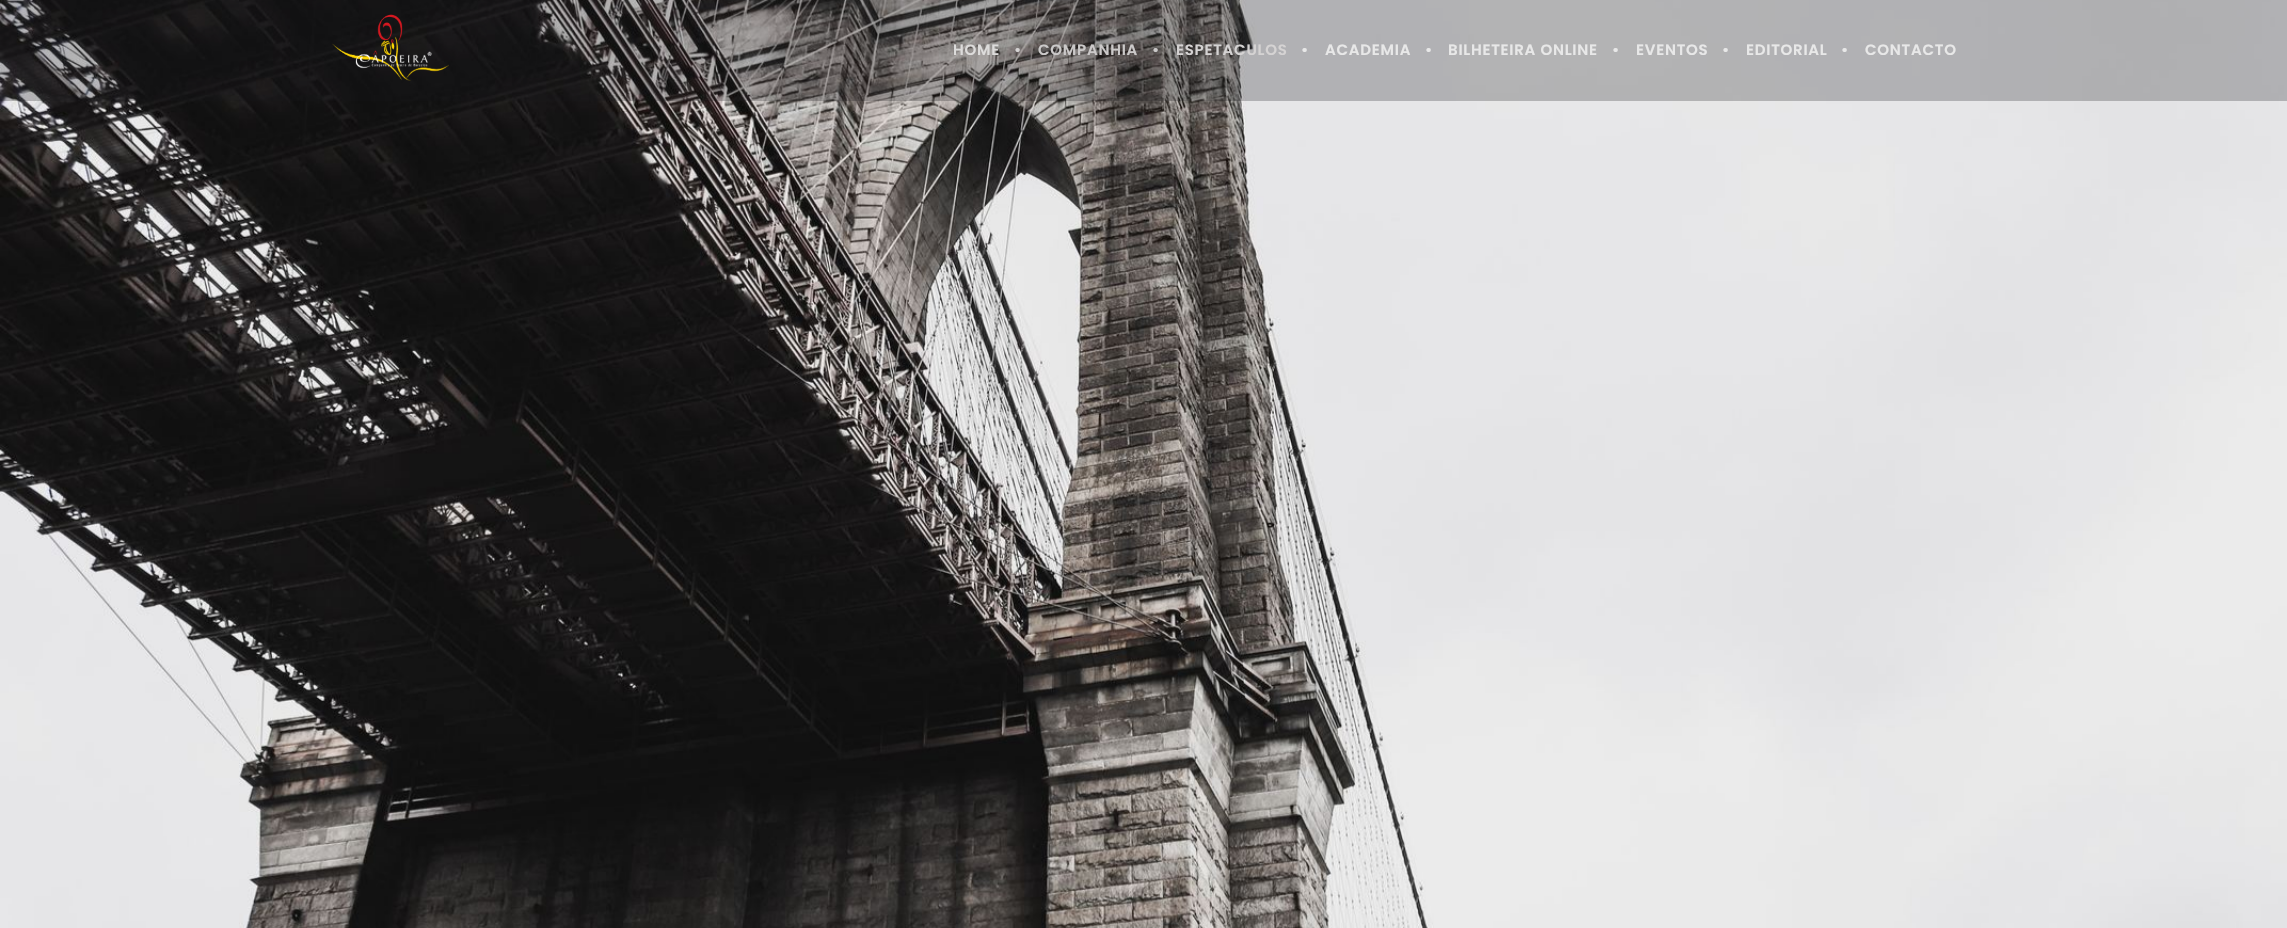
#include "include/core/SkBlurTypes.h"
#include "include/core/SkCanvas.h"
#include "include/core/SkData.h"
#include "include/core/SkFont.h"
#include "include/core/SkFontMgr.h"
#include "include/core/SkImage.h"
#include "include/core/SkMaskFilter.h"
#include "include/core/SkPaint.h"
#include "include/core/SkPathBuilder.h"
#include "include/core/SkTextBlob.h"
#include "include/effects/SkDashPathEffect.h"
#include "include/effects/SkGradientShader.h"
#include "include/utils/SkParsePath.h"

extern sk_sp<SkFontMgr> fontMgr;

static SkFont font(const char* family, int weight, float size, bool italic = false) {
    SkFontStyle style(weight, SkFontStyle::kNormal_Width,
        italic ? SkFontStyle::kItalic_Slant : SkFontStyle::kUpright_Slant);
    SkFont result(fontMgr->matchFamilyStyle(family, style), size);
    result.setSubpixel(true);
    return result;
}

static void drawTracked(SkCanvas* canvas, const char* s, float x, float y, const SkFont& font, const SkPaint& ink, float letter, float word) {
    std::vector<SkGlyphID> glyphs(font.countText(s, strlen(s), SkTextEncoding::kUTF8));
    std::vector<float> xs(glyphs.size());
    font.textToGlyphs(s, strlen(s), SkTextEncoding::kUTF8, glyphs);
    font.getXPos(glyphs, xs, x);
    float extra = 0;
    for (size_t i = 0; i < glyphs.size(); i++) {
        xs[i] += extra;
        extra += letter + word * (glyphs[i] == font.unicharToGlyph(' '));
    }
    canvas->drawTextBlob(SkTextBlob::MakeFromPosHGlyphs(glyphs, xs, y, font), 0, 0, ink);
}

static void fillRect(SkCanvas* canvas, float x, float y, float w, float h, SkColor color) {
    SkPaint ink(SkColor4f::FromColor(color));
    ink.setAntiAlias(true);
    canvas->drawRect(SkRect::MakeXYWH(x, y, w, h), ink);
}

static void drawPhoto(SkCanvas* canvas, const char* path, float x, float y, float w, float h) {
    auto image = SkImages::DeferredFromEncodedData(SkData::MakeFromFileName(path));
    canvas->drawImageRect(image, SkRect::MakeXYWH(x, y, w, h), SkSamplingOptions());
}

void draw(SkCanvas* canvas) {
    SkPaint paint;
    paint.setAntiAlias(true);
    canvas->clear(0xFFFFFFFF);
    drawPhoto(canvas, "assets/img1.png", 0, 0, 2287, 928);
    fillRect(canvas, 0, 0, 2287, 101, 0x40131416);
    drawPhoto(canvas, "assets/img2.png", 332, 14, 117, 67);
    SkFont font1 = font("Poppins", 600, 15);
    paint.setColor(0xFFDDDCDB);
    drawTracked(canvas, "HOME", 953, 55, font1, paint, 0.75f, 0);
    paint.setColor(0xFFD5D3D3);
    drawTracked(canvas, "•", 1014, 55, font1, paint, 0.75f, 0);
    paint.setColor(0xFFCBC9C9);
    drawTracked(canvas, "COMPANHIA", 1038, 55, font1, paint, 0.75f, 0);
    drawTracked(canvas, "•", 1152, 55, font1, paint, 0.75f, 0);
    paint.setColor(0xFFD5D3D3);
    drawTracked(canvas, "ESPETACULOS", 1176, 55, font1, paint, 0.75f, 0);
    paint.setColor(0xFFE8E8E8);
    drawTracked(canvas, "•", 1301, 55, font1, paint, 0.75f, 0);
    drawTracked(canvas, "ACADEMIA", 1325, 55, font1, paint, 0.75f, 0);
    drawTracked(canvas, "•", 1425, 55, font1, paint, 0.75f, 0);
    drawTracked(canvas, "BILHETEIRA ONLINE", 1448, 55, font1, paint, 0.75f, 0);
    drawTracked(canvas, "•", 1612, 55, font1, paint, 0.75f, 0);
    drawTracked(canvas, "EVENTOS", 1636, 55, font1, paint, 0.75f, 0);
    drawTracked(canvas, "•", 1722, 55, font1, paint, 0.75f, 0);
    drawTracked(canvas, "EDITORIAL", 1746, 55, font1, paint, 0.75f, 0);
    drawTracked(canvas, "•", 1841, 55, font1, paint, 0.75f, 0);
    drawTracked(canvas, "CONTACTO", 1865, 55, font1, paint, 0.75f, 0);
}
